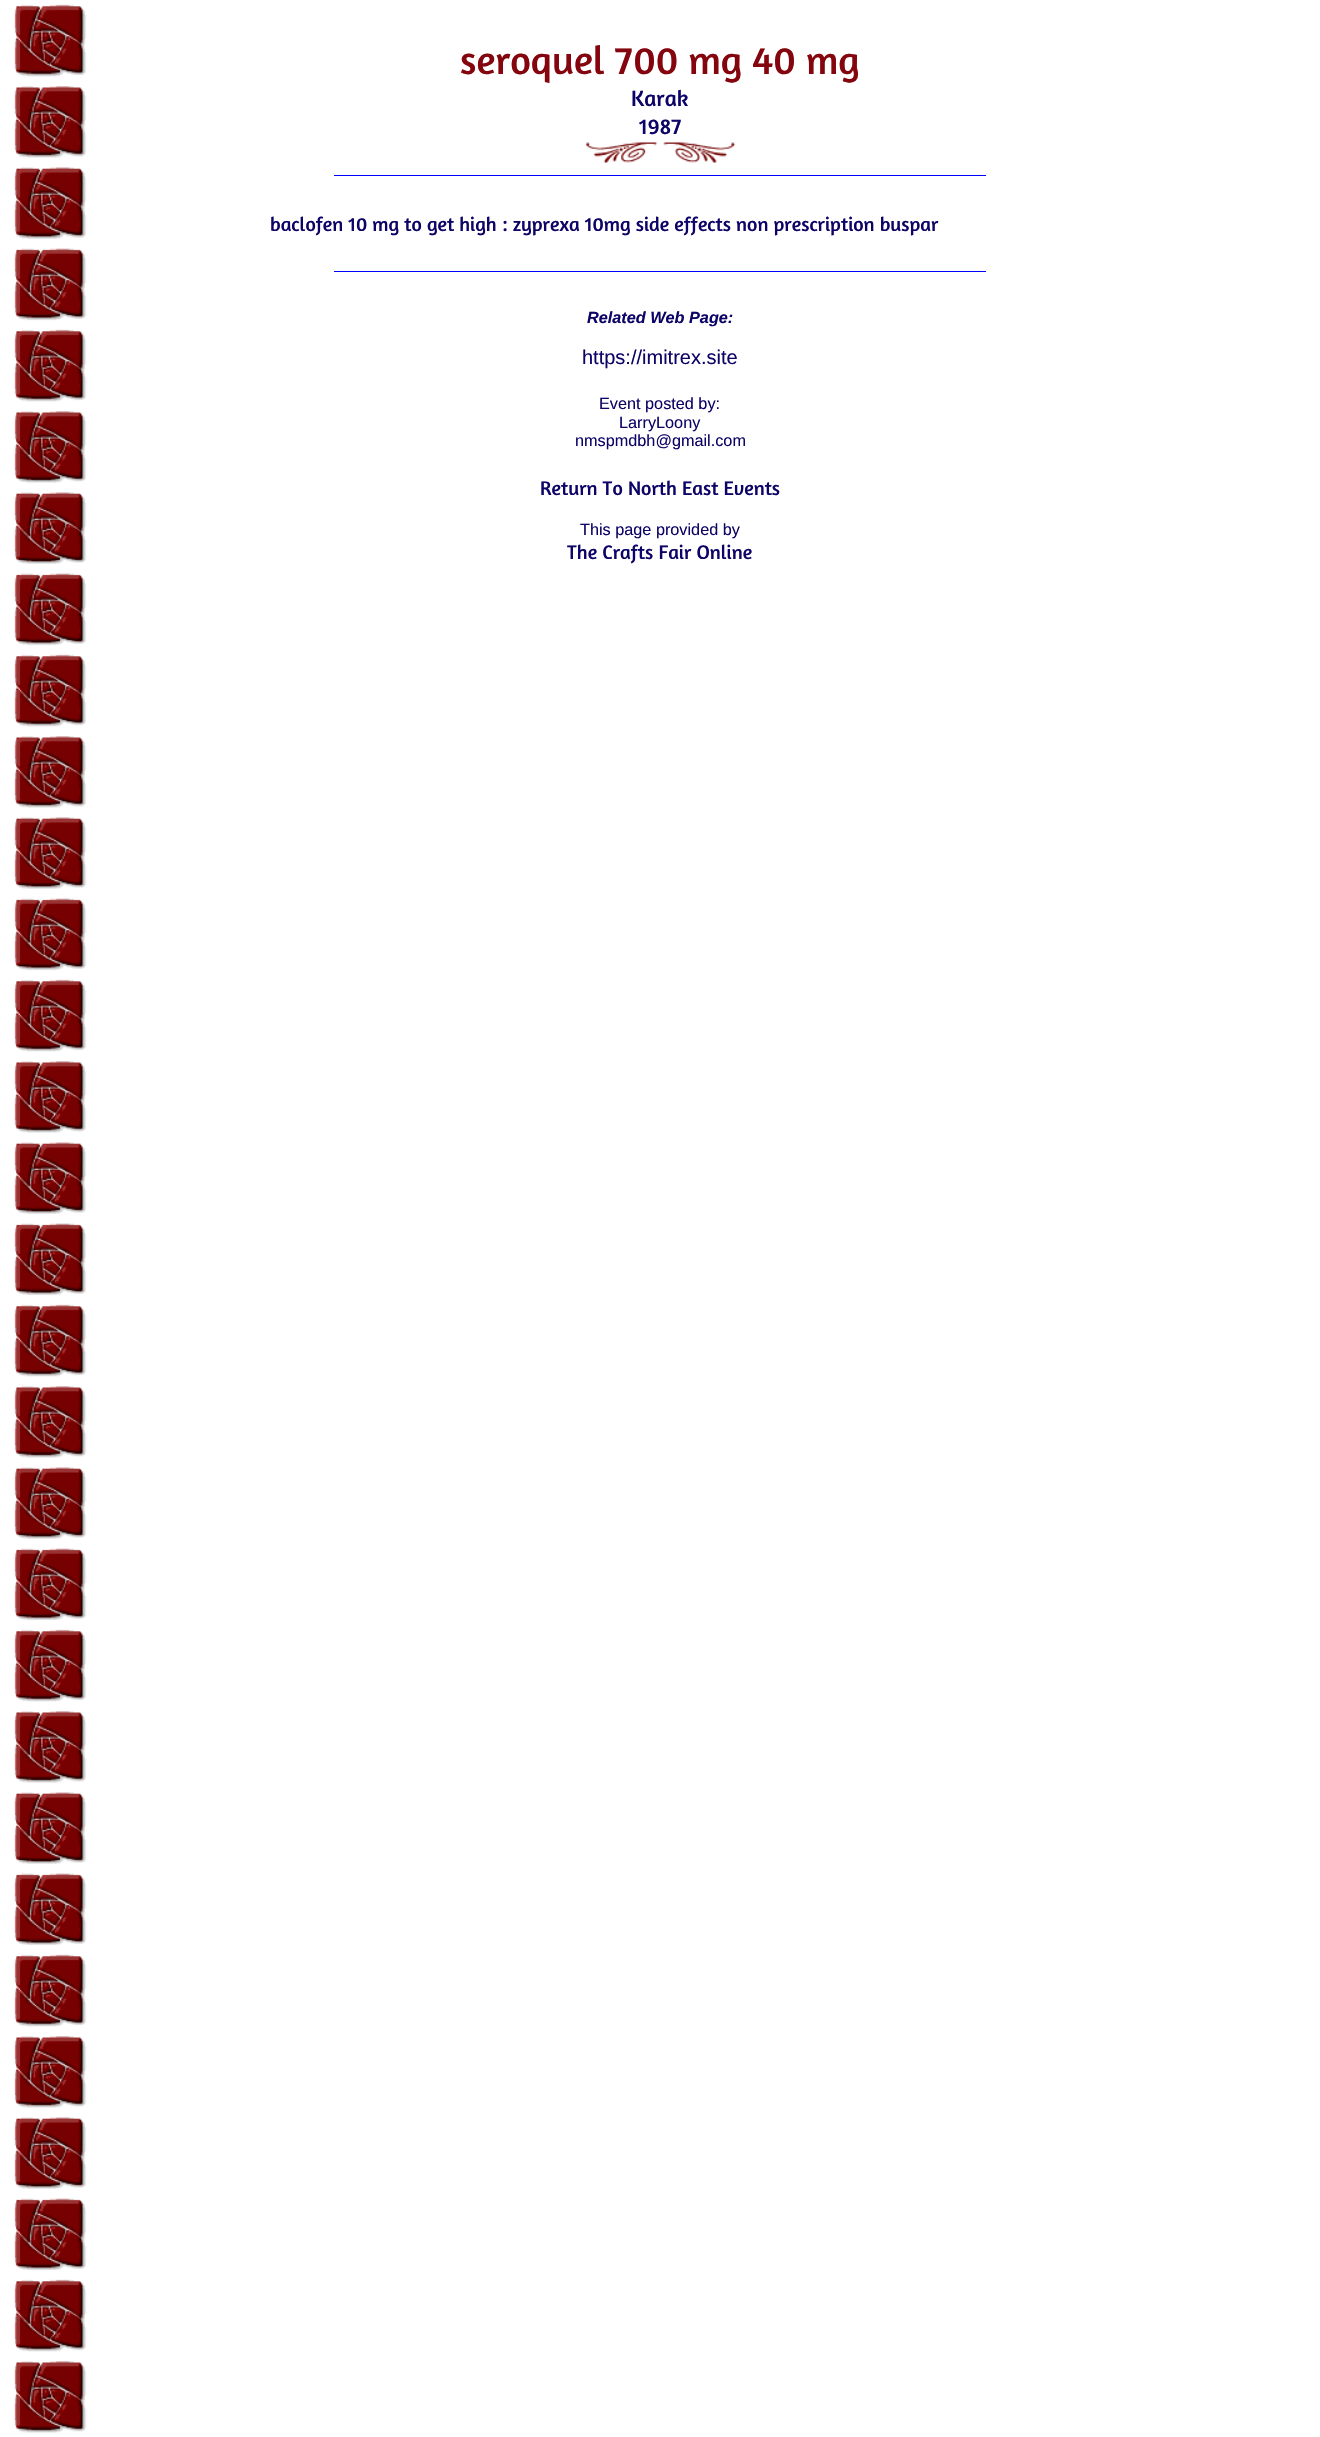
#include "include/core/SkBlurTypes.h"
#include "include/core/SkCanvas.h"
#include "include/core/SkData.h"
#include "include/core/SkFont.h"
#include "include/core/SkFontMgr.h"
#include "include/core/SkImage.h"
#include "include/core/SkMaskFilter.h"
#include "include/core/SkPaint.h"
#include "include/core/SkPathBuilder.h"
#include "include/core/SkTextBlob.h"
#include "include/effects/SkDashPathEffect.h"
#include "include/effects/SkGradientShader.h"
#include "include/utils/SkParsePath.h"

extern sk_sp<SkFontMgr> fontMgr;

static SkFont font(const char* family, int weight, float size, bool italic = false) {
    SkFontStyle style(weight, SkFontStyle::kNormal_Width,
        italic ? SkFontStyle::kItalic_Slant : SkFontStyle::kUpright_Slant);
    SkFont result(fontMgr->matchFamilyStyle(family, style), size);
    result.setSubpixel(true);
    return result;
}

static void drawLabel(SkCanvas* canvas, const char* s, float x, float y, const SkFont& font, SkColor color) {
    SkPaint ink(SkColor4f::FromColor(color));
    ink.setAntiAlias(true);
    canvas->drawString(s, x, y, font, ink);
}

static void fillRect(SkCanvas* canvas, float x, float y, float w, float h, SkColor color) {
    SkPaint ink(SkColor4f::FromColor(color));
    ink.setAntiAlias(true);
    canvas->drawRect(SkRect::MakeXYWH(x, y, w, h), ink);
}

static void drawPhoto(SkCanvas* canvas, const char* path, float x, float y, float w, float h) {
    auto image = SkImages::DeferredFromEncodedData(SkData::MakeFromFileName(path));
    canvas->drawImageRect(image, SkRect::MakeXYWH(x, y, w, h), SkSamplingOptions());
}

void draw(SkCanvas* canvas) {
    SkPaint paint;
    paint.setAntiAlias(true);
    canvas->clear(0xFFFFFFFF);
    drawPhoto(canvas, "assets/img1.png", 14, 4, 73, 2429);
    SkFont font1 = font("Amaranth", 400, 40);
    drawLabel(canvas, "seroquel 700 mg 40 mg", 460, 74, font1, 0xFF85050E);
    SkFont font2 = font("Amaranth", 400, 22.5f);
    drawLabel(canvas, "Karak", 631, 106, font2, 0xFF0C0466);
    drawLabel(canvas, "1987", 639, 134, font2, 0xFF0C0466);
    drawPhoto(canvas, "assets/img2.png", 586, 142, 150, 21);
    fillRect(canvas, 334, 175, 652, 1, 0xFF0000FF);
    SkFont font3 = font("Amaranth", 400, 20);
    drawLabel(canvas, "baclofen 10 mg to get high : zyprexa 10mg side effects non prescription buspar", 270, 231, font3, 0xFF0C0466);
    fillRect(canvas, 334, 271, 652, 1, 0xFF0000FF);
    SkFont font4 = font("Liberation Sans", 700, 16.25f, true);
    drawLabel(canvas, "Related Web Page:", 587, 323, font4, 0xFF0C0466);
    SkFont font5 = font("Liberation Sans", 400, 20);
    drawLabel(canvas, "https://imitrex.site", 582, 364, font5, 0xFF0C0466);
    SkFont font6 = font("Liberation Sans", 400, 16.25f);
    drawLabel(canvas, "Event posted by:", 599, 409, font6, 0xFF0C0466);
    drawLabel(canvas, "LarryLoony", 619, 428, font6, 0xFF0C0466);
    drawLabel(canvas, "nmspmdbh@gmail.com", 575, 446, font6, 0xFF0C0466);
    drawLabel(canvas, "Return To North East Events", 540, 495, font3, 0xFF0C0466);
    drawLabel(canvas, "This page provided by", 580, 535, font6, 0xFF0C0466);
    drawLabel(canvas, "The Crafts Fair Online", 567, 559, font3, 0xFF0C0466);
}
